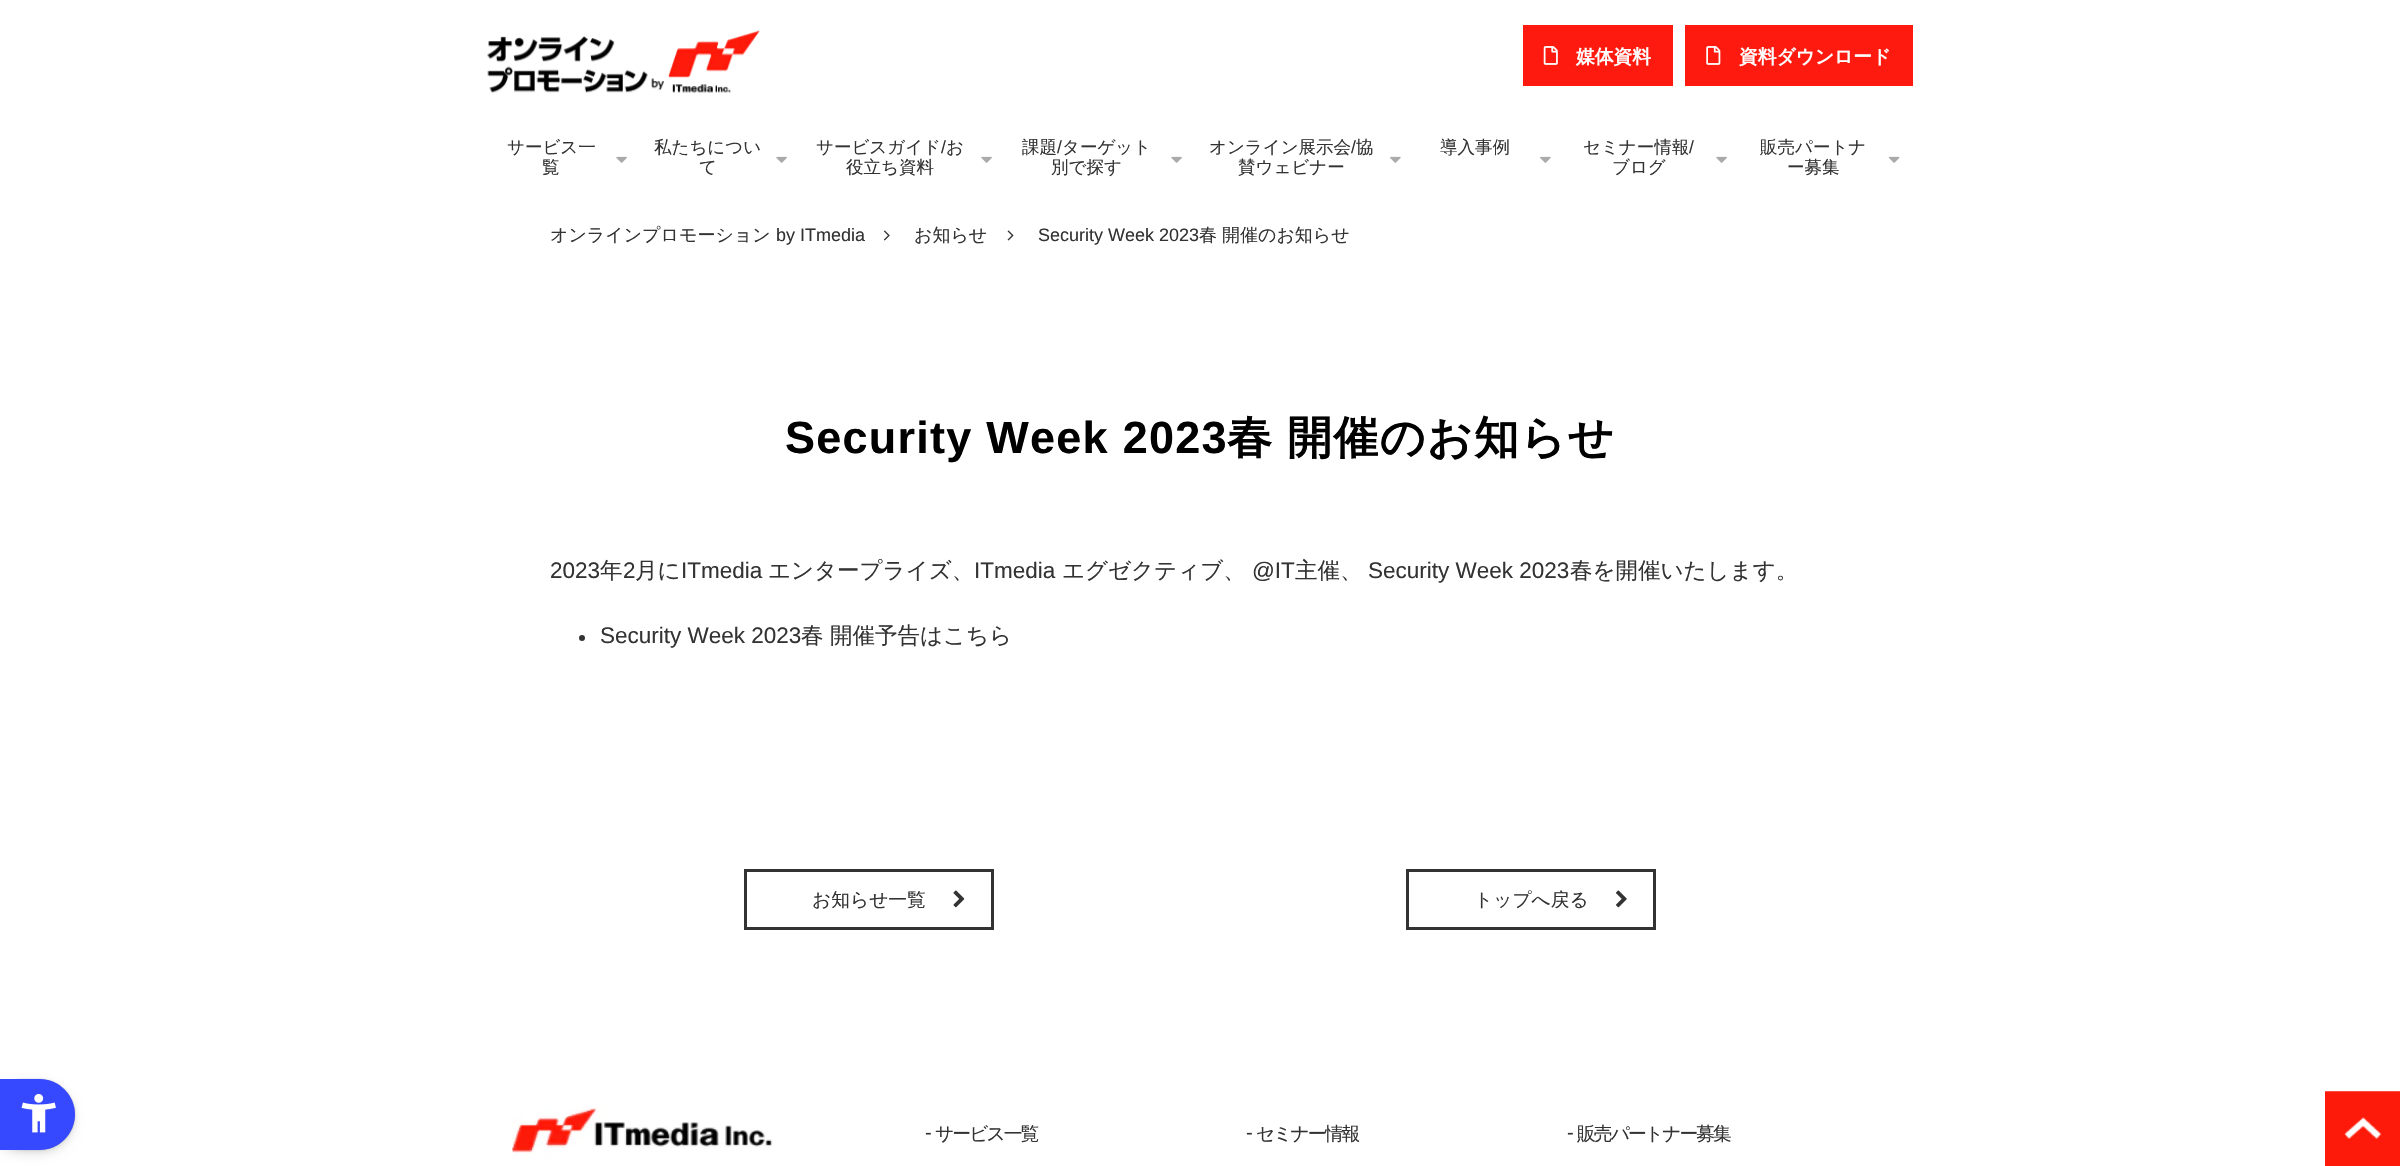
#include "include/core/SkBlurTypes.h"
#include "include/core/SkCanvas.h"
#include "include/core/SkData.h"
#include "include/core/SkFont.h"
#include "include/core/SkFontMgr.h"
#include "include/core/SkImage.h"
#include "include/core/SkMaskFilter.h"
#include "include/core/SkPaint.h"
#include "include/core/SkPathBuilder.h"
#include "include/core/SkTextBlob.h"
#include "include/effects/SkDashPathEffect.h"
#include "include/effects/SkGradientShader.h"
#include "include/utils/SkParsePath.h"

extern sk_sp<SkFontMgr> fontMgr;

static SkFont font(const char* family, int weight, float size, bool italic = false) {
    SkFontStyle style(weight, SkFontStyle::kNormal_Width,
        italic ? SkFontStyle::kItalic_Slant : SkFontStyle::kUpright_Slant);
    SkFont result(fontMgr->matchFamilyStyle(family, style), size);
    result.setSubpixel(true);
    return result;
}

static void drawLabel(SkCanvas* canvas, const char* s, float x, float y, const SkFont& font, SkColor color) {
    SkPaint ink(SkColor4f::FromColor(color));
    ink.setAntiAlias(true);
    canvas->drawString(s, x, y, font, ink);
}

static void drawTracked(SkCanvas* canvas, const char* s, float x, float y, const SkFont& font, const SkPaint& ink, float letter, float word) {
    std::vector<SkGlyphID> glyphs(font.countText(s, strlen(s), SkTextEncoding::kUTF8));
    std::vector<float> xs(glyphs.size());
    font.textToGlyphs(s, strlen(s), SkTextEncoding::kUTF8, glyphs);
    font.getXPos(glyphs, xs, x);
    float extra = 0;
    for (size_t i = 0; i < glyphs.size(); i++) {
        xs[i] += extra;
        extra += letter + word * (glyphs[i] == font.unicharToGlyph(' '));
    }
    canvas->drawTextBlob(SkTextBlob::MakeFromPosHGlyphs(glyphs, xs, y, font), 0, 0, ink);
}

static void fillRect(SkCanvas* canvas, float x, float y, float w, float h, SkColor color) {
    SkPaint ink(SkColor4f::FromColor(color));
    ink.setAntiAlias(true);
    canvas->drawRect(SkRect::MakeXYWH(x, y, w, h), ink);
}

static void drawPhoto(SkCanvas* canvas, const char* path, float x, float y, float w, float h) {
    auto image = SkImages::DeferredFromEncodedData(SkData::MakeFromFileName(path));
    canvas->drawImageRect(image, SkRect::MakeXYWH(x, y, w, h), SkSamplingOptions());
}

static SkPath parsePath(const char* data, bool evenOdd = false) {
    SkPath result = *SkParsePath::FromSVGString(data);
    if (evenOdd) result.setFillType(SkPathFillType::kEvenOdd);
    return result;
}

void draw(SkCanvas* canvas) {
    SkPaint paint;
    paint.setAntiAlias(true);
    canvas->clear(0xFFFFFFFF);
    paint.setColor(0x17000000);
    paint.setMaskFilter(SkMaskFilter::MakeBlur(kNormal_SkBlurStyle, 5));
    canvas->drawRoundRect(SkRect::MakeXYWH(-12, 1084, 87, 71), 35.5f, 35.5f, paint);
    paint.setMaskFilter(nullptr);
    paint.setMaskFilter(SkMaskFilter::MakeBlur(kNormal_SkBlurStyle, 2));
    canvas->drawRoundRect(SkRect::MakeXYWH(-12, 1080, 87, 71), 35.5f, 35.5f, paint);
    paint.setMaskFilter(nullptr);
    paint.setColor(0x66000000);
    paint.setMaskFilter(SkMaskFilter::MakeBlur(kNormal_SkBlurStyle, 0.5f));
    canvas->drawRoundRect(SkRect::MakeXYWH(-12, 1079, 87, 71), 35.5f, 35.5f, paint);
    paint.setMaskFilter(nullptr);
    paint.setColor(0xFF3649FF);
    canvas->drawPath(parsePath("M-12 1079H39.5C59 1079 75 1095 75 1114.5C75 1134 59 1150 39.5 1150H-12Z"), paint);
    drawPhoto(canvas, "assets/img1.png", 21, 1094, 35, 39);
    drawPhoto(canvas, "assets/img2.png", 487, 30, 273, 63);
    fillRect(canvas, 1523, 25, 150, 61, 0xFFFE1A0E);
    drawPhoto(canvas, "assets/img3.png", 1543, 46, 15, 19);
    SkFont font1 = font("WenQuanYi Zen Hei", 700, 18.75f);
    drawLabel(canvas, "媒体資料", 1576, 63, font1, 0xFFFFFFFF);
    fillRect(canvas, 1685, 25, 228, 61, 0xFFFE1A0E);
    drawPhoto(canvas, "assets/img4.png", 1706, 46, 15, 19);
    drawLabel(canvas, "資料ダウンロード", 1739, 63, font1, 0xFFFFFFFF);
    SkFont font2 = font("WenQuanYi Zen Hei", 500, 17.5f);
    drawLabel(canvas, "サービス一", 507, 153, font2, 0xFF333333);
    drawLabel(canvas, "覧", 542, 173, font2, 0xFF333333);
    drawPhoto(canvas, "assets/img5.png", 616, 156, 11, 7);
    drawLabel(canvas, "私たちについ", 654, 153, font2, 0xFF333333);
    drawLabel(canvas, "て", 699, 173, font2, 0xFF333333);
    drawPhoto(canvas, "assets/img5.png", 776, 156, 11, 7);
    drawLabel(canvas, "サービスガイド", 816, 153, font2, 0xFF333333);
    SkFont font3 = font("Liberation Sans", 400, 17.5f);
    drawLabel(canvas, "/", 941, 153, font3, 0xFF333333);
    drawLabel(canvas, "お", 946, 153, font2, 0xFF333333);
    drawLabel(canvas, "役立ち資料", 846, 173, font2, 0xFF333333);
    drawPhoto(canvas, "assets/img5.png", 981, 156, 11, 7);
    drawLabel(canvas, "課題", 1022, 153, font2, 0xFF333333);
    drawLabel(canvas, "/", 1057, 153, font3, 0xFF333333);
    drawLabel(canvas, "ターゲット", 1062, 153, font2, 0xFF333333);
    drawLabel(canvas, "別で探す", 1051, 173, font2, 0xFF333333);
    drawPhoto(canvas, "assets/img5.png", 1171, 156, 11, 7);
    drawLabel(canvas, "オンライン展示会", 1209, 153, font2, 0xFF333333);
    drawLabel(canvas, "/", 1351, 153, font3, 0xFF333333);
    drawLabel(canvas, "協", 1356, 153, font2, 0xFF333333);
    drawLabel(canvas, "賛ウェビナー", 1238, 173, font2, 0xFF333333);
    drawPhoto(canvas, "assets/img6.png", 1390, 156, 11, 7);
    drawLabel(canvas, "導入事例", 1440, 153, font2, 0xFF333333);
    drawPhoto(canvas, "assets/img6.png", 1540, 156, 11, 7);
    drawLabel(canvas, "セミナー情報", 1583, 153, font2, 0xFF333333);
    drawLabel(canvas, "/", 1689, 153, font3, 0xFF333333);
    drawLabel(canvas, "ブログ", 1612, 173, font2, 0xFF333333);
    drawPhoto(canvas, "assets/img5.png", 1716, 156, 11, 7);
    drawLabel(canvas, "販売パートナ", 1760, 153, font2, 0xFF333333);
    drawLabel(canvas, "ー募集", 1787, 173, font2, 0xFF333333);
    drawPhoto(canvas, "assets/img7.png", 1888, 156, 12, 7);
    SkFont font4 = font("WenQuanYi Zen Hei", 500, 18);
    drawLabel(canvas, "オンラインプロモーション", 550, 241, font4, 0xFF333333);
    SkFont font5 = font("Liberation Sans", 400, 18);
    drawLabel(canvas, "by ITmedia", 776, 241, font5, 0xFF333333);
    drawPhoto(canvas, "assets/img8.png", 883, 230, 7, 11);
    drawLabel(canvas, "お知らせ", 914, 241, font4, 0xFF333333);
    drawPhoto(canvas, "assets/img9.png", 1007, 230, 7, 11);
    drawLabel(canvas, "Security Week 2023", 1038, 241, font5, 0xFF333333);
    drawLabel(canvas, "春", 1199, 241, font4, 0xFF333333);
    drawLabel(canvas, "開催のお知らせ", 1222, 241, font4, 0xFF333333);
    SkFont font6 = font("Liberation Sans", 700, 45);
    paint.setColor(0xFF000000);
    drawTracked(canvas, "Security Week 2023", 785, 453, font6, paint, 1.25f, 0);
    SkFont font7 = font("WenQuanYi Zen Hei", 700, 45);
    drawTracked(canvas, "春", 1227, 453, font7, paint, 1.25f, 0);
    drawTracked(canvas, "開催のお知らせ", 1287, 453, font7, paint, 1.25f, 0);
    SkFont font8 = font("Liberation Sans", 400, 22.5f);
    drawLabel(canvas, "2023", 550, 578, font8, 0xFF333333);
    SkFont font9 = font("WenQuanYi Zen Hei", 500, 22.5f);
    drawLabel(canvas, "年", 600, 578, font9, 0xFF333333);
    drawLabel(canvas, "2", 623, 578, font8, 0xFF333333);
    drawLabel(canvas, "月に", 635, 578, font9, 0xFF333333);
    drawLabel(canvas, "ITmedia", 681, 578, font8, 0xFF333333);
    drawLabel(canvas, "エンタープライズ、", 768, 578, font9, 0xFF333333);
    drawLabel(canvas, "ITmedia", 974, 578, font8, 0xFF333333);
    drawLabel(canvas, "エグゼクティブ、", 1062, 578, font9, 0xFF333333);
    drawLabel(canvas, "@IT", 1252, 578, font8, 0xFF333333);
    drawLabel(canvas, "主催、", 1295, 578, font9, 0xFF333333);
    drawLabel(canvas, "Security Week 2023", 1368, 578, font8, 0xFF333333);
    drawLabel(canvas, "春を開催いたします。", 1570, 578, font9, 0xFF333333);
    paint.setColor(0xFF333333);
    canvas->drawCircle(582, 638, 3, paint);
    drawLabel(canvas, "Security Week 2023", 600, 643, font8, 0xFF333333);
    drawLabel(canvas, "春", 801, 643, font9, 0xFF333333);
    drawLabel(canvas, "開催予告はこちら", 830, 643, font9, 0xFF333333);
    paint.setStroke(true);
    paint.setStrokeWidth(3);
    canvas->drawRect(SkRect::MakeXYWH(745.5f, 870.5f, 247, 58), paint);
    SkFont font10 = font("WenQuanYi Zen Hei", 500, 18.75f);
    drawLabel(canvas, "お知らせ一覧", 812, 906, font10, 0xFF333333);
    drawPhoto(canvas, "assets/img10.png", 953, 890, 12, 18);
    canvas->drawRect(SkRect::MakeXYWH(1407.5f, 870.5f, 247, 58), paint);
    drawLabel(canvas, "トップへ戻る", 1474, 906, font10, 0xFF333333);
    drawPhoto(canvas, "assets/img11.png", 1616, 890, 11, 18);
    drawPhoto(canvas, "assets/img12.png", 512, 1107, 261, 52);
    SkFont font11 = font("Liberation Sans", 400, 20);
    drawLabel(canvas, "-", 925, 1139, font11, 0xFF333333);
    paint.setStroke(false);
    drawTracked(canvas, "サービス一覧", 935, 1140, font10, paint, -1.9f, 0);
    drawLabel(canvas, "-", 1246, 1139, font11, 0xFF333333);
    drawTracked(canvas, "セミナー情報", 1256, 1140, font10, paint, -1.9f, 0);
    drawLabel(canvas, "-", 1567, 1139, font11, 0xFF333333);
    drawTracked(canvas, "販売パートナー募集", 1577, 1140, font10, paint, -1.9f, 0);
    drawPhoto(canvas, "assets/img13.png", 2325, 1091, 75, 75);
}
